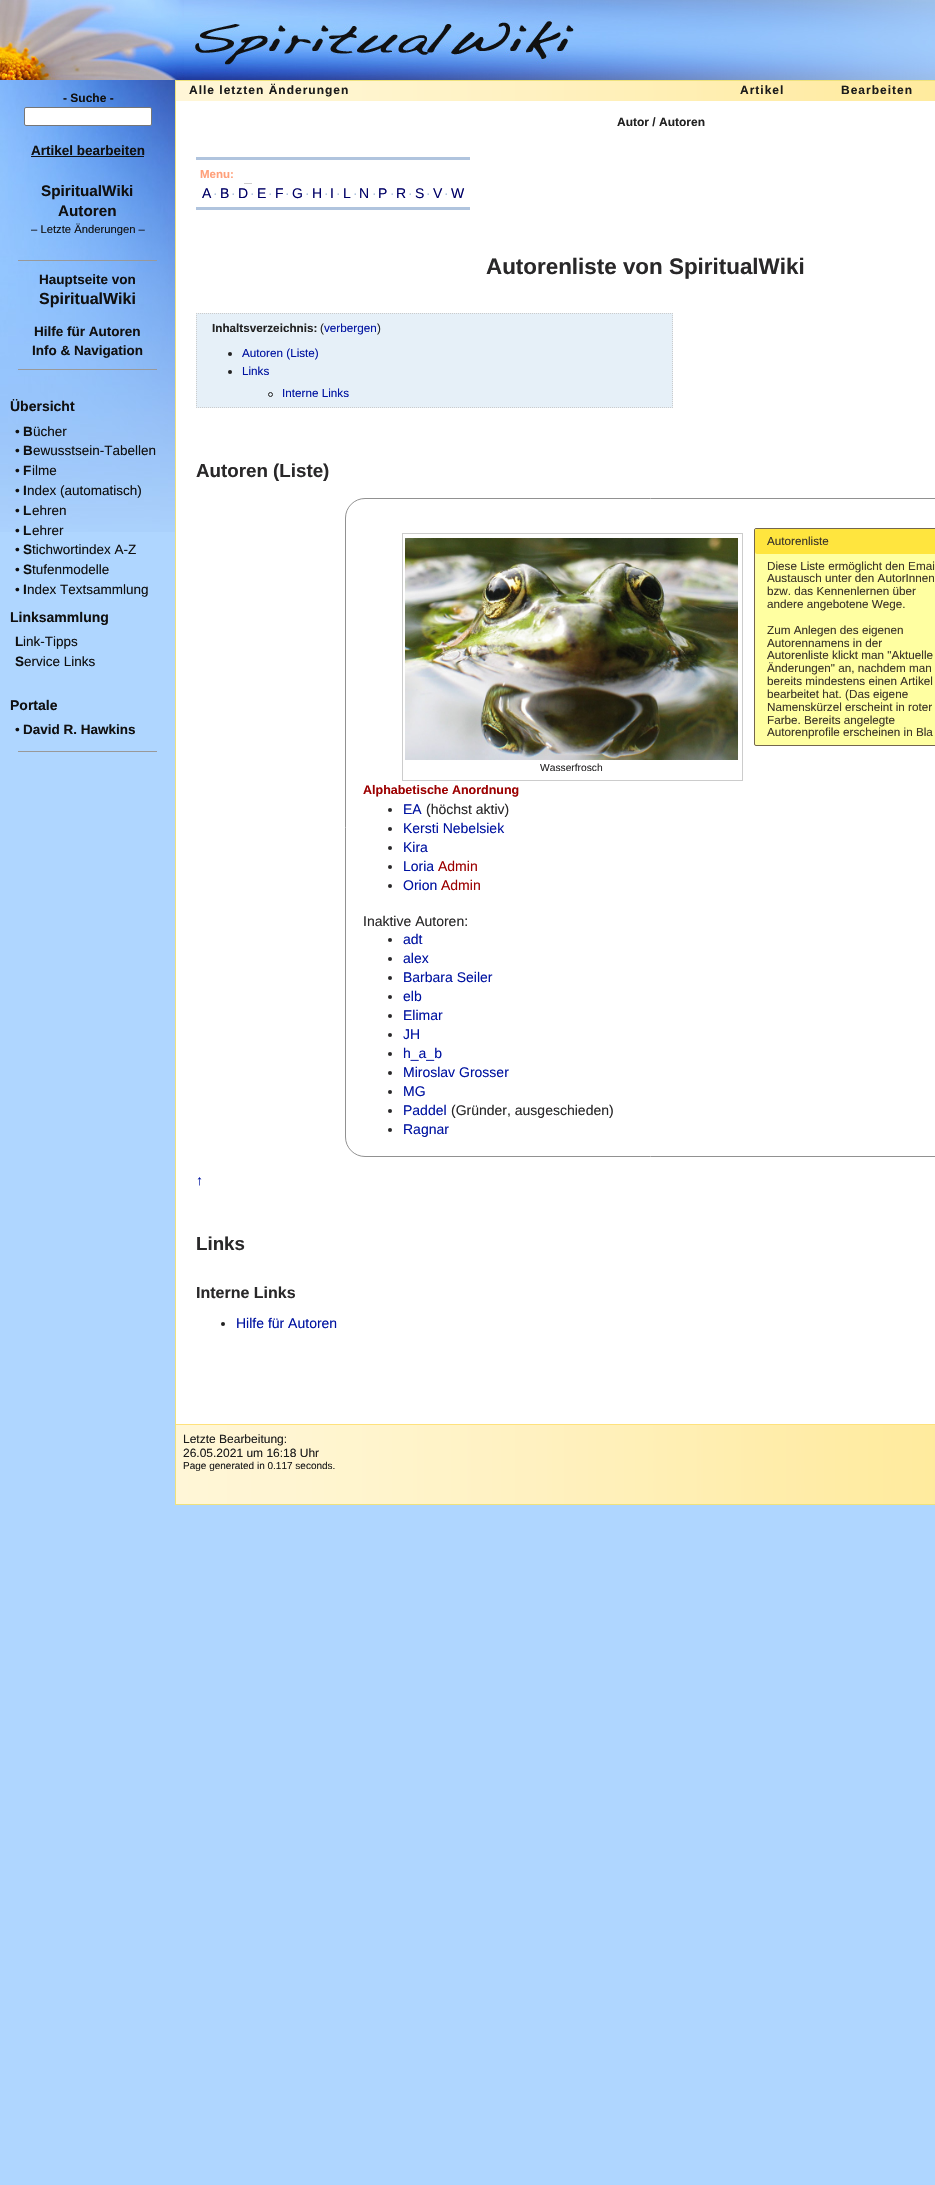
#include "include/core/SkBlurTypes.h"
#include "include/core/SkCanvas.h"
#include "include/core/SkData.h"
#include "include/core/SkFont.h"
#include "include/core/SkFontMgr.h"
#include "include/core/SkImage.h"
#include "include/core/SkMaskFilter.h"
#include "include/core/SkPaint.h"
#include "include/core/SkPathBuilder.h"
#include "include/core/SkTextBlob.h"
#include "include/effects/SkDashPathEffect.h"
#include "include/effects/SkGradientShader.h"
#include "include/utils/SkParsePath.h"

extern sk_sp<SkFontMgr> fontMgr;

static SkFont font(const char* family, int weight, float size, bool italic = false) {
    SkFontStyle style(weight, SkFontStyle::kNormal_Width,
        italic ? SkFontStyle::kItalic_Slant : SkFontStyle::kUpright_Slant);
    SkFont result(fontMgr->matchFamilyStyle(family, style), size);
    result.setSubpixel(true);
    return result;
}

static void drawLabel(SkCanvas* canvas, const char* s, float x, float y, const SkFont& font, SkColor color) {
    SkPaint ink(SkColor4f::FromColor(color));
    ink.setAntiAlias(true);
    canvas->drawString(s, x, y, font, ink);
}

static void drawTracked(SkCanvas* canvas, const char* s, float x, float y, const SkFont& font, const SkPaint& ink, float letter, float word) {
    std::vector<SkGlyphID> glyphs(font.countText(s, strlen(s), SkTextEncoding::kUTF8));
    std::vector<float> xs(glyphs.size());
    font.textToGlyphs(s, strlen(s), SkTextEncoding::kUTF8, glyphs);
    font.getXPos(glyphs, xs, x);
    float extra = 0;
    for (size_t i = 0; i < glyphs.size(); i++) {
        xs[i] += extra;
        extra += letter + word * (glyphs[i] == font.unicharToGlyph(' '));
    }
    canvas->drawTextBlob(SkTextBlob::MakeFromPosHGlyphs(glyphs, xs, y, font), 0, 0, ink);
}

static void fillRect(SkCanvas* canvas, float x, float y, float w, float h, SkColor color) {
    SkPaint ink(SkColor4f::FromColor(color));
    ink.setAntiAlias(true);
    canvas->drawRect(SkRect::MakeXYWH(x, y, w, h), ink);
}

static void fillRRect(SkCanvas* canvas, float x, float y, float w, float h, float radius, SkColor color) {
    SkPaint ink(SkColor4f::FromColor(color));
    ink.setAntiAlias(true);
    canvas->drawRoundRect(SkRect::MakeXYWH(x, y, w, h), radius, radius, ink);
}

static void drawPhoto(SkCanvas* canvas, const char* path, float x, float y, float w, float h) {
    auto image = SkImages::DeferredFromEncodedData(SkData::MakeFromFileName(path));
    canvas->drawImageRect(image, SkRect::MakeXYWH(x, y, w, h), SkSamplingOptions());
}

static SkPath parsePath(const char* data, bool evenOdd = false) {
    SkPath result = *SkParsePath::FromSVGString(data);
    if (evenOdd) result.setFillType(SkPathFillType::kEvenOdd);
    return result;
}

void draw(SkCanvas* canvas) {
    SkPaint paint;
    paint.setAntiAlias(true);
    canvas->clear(0xFFAFD6FF);
    drawPhoto(canvas, "assets/img1.png", 0, 0, 935, 80);
    drawPhoto(canvas, "assets/img2.png", 0, 80, 175, 452);
    SkFont font1 = font("Liberation Sans", 700, 12);
    drawLabel(canvas, "- Suche -", 63, 102, font1, 0xFF101010);
    paint.setColor(0xFFFFFFFF);
    canvas->drawRoundRect(SkRect::MakeXYWH(24.5f, 107.5f, 127, 18), 1.5f, 1.5f, paint);
    paint.setStroke(true);
    paint.setStrokeWidth(1);
    paint.setColor(0xFF767676);
    canvas->drawRoundRect(SkRect::MakeXYWH(24.5f, 107.5f, 127, 18), 1.5f, 1.5f, paint);
    SkFont font2 = font("Liberation Sans", 700, 13.5f);
    drawLabel(canvas, "Artikel bearbeiten", 31, 155, font2, 0xFF101010);
    fillRect(canvas, 31, 156, 113, 1, 0xFF101010);
    SkFont font3 = font("Liberation Sans", 700, 15.25f);
    drawLabel(canvas, "SpiritualWiki", 41, 196, font3, 0xFF101010);
    drawLabel(canvas, "Autoren", 58, 216, font3, 0xFF101010);
    SkFont font4 = font("Liberation Sans", 400, 11.25f);
    drawLabel(canvas, "– Letzte Änderungen –", 31, 233, font4, 0xFF101010);
    fillRect(canvas, 18, 260, 139, 1, 0xFF999999);
    drawLabel(canvas, "Hauptseite von", 39, 284, font2, 0xFF101010);
    SkFont font5 = font("Liberation Sans", 700, 16);
    drawLabel(canvas, "SpiritualWiki", 39, 304, font5, 0xFF101010);
    drawLabel(canvas, "Hilfe für Autoren", 34, 336, font2, 0xFF101010);
    drawLabel(canvas, "Info & Navigation", 32, 355, font2, 0xFF101010);
    fillRect(canvas, 18, 369, 139, 1, 0xFF999999);
    SkFont font6 = font("Liberation Sans", 700, 14);
    drawLabel(canvas, "Übersicht", 10, 411, font6, 0xFF101010);
    SkFont font7 = font("Liberation Sans", 400, 13.5f);
    drawLabel(canvas, "•", 15, 436, font7, 0xFF101010);
    drawLabel(canvas, "B", 23, 436, font2, 0xFF101010);
    drawLabel(canvas, "ücher", 33, 436, font7, 0xFF101010);
    drawLabel(canvas, "•", 15, 455, font7, 0xFF101010);
    drawLabel(canvas, "B", 23, 455, font2, 0xFF101010);
    drawLabel(canvas, "ewusstsein-Tabellen", 33, 455, font7, 0xFF101010);
    drawLabel(canvas, "•", 15, 475, font7, 0xFF101010);
    drawLabel(canvas, "F", 23, 475, font2, 0xFF101010);
    drawLabel(canvas, "ilme", 32, 475, font7, 0xFF101010);
    drawLabel(canvas, "•", 15, 495, font7, 0xFF101010);
    drawLabel(canvas, "I", 23, 495, font2, 0xFF101010);
    drawLabel(canvas, "ndex (automatisch)", 27, 495, font7, 0xFF101010);
    drawLabel(canvas, "•", 15, 515, font7, 0xFF101010);
    drawLabel(canvas, "L", 23, 515, font2, 0xFF101010);
    drawLabel(canvas, "ehren", 32, 515, font7, 0xFF101010);
    drawLabel(canvas, "•", 15, 535, font7, 0xFF101010);
    drawLabel(canvas, "L", 23, 535, font2, 0xFF101010);
    drawLabel(canvas, "ehrer", 32, 535, font7, 0xFF101010);
    drawLabel(canvas, "•", 15, 554, font7, 0xFF101010);
    drawLabel(canvas, "S", 23, 554, font2, 0xFF101010);
    drawLabel(canvas, "tichwortindex A-Z", 32, 554, font7, 0xFF101010);
    drawLabel(canvas, "•", 15, 574, font7, 0xFF101010);
    drawLabel(canvas, "S", 23, 574, font2, 0xFF101010);
    drawLabel(canvas, "tufenmodelle", 32, 574, font7, 0xFF101010);
    drawLabel(canvas, "•", 15, 594, font7, 0xFF101010);
    drawLabel(canvas, "I", 23, 594, font2, 0xFF101010);
    drawLabel(canvas, "ndex Textsammlung", 27, 594, font7, 0xFF101010);
    drawLabel(canvas, "Linksammlung", 10, 622, font6, 0xFF101010);
    drawLabel(canvas, "L", 15, 646, font2, 0xFF101010);
    drawLabel(canvas, "ink-Tipps", 23, 646, font7, 0xFF101010);
    drawLabel(canvas, "S", 15, 666, font2, 0xFF101010);
    drawLabel(canvas, "ervice Links", 24, 666, font7, 0xFF101010);
    drawLabel(canvas, "Portale", 10, 710, font6, 0xFF101010);
    drawLabel(canvas, "•", 15, 734, font7, 0xFF101010);
    drawLabel(canvas, "David R. Hawkins", 23, 734, font2, 0xFF101010);
    fillRect(canvas, 18, 751, 139, 1, 0xFF999999);
    fillRect(canvas, 175, 80, 760, 1425, 0xFFEEE27D);
    drawPhoto(canvas, "assets/img3.png", 176, 81, 759, 20);
    paint.setStroke(false);
    paint.setColor(0xFF1B1B1B);
    drawTracked(canvas, "Alle letzten Änderungen", 189, 94, font1, paint, 1, 0);
    drawTracked(canvas, "Artikel", 740, 94, font1, paint, 1, 0);
    drawTracked(canvas, "Bearbeiten", 841, 94, font1, paint, 1, 0);
    fillRect(canvas, 176, 101, 759, 1323, 0xFFFFFFFF);
    fillRect(canvas, 176, 1424, 759, 1, 0xFFFFE27D);
    drawLabel(canvas, "Autor / Autoren", 617, 126, font1, 0xFF222222);
    fillRect(canvas, 196, 157, 274, 3, 0xFFB0C4DE);
    fillRect(canvas, 196, 207, 274, 3, 0xFFB0C4DE);
    SkFont font8 = font("Liberation Sans", 700, 11.5f);
    drawLabel(canvas, "Menu:", 200, 178, font8, 0xFFFFA07A);
    fillRect(canvas, 244, 183, 8, 1, 0xFFCCCCCC);
    SkFont font9 = font("Liberation Sans", 400, 14);
    drawLabel(canvas, "A", 202, 198, font9, 0xFF000066);
    drawLabel(canvas, "·", 213, 198, font9, 0xFFB0C4DE);
    drawLabel(canvas, "B", 220, 198, font9, 0xFF000066);
    drawLabel(canvas, "·", 231, 198, font9, 0xFFB0C4DE);
    drawLabel(canvas, "D", 238, 198, font9, 0xFF000066);
    drawLabel(canvas, "·", 250, 198, font9, 0xFFB0C4DE);
    drawLabel(canvas, "E", 257, 198, font9, 0xFF000066);
    drawLabel(canvas, "·", 268, 198, font9, 0xFFB0C4DE);
    drawLabel(canvas, "F", 275, 198, font9, 0xFF000066);
    drawLabel(canvas, "·", 285, 198, font9, 0xFFB0C4DE);
    drawLabel(canvas, "G", 292, 198, font9, 0xFF000066);
    drawLabel(canvas, "·", 305, 198, font9, 0xFFB0C4DE);
    drawLabel(canvas, "H", 312, 198, font9, 0xFF000066);
    drawLabel(canvas, "·", 324, 198, font9, 0xFFB0C4DE);
    drawLabel(canvas, "I", 330, 198, font9, 0xFF000066);
    drawLabel(canvas, "·", 336, 198, font9, 0xFFB0C4DE);
    drawLabel(canvas, "L", 343, 198, font9, 0xFF000066);
    drawLabel(canvas, "·", 353, 198, font9, 0xFFB0C4DE);
    drawLabel(canvas, "N", 359, 198, font9, 0xFF000066);
    drawLabel(canvas, "·", 372, 198, font9, 0xFFB0C4DE);
    drawLabel(canvas, "P", 378, 198, font9, 0xFF000066);
    drawLabel(canvas, "·", 390, 198, font9, 0xFFB0C4DE);
    drawLabel(canvas, "R", 396, 198, font9, 0xFF000066);
    drawLabel(canvas, "·", 408, 198, font9, 0xFFB0C4DE);
    drawLabel(canvas, "S", 415, 198, font9, 0xFF000066);
    drawLabel(canvas, "·", 426, 198, font9, 0xFFB0C4DE);
    drawLabel(canvas, "V", 433, 198, font9, 0xFF000066);
    drawLabel(canvas, "·", 444, 198, font9, 0xFFB0C4DE);
    drawLabel(canvas, "W", 451, 198, font9, 0xFF000066);
    SkFont font10 = font("Liberation Sans", 700, 22.4f);
    drawLabel(canvas, "Autorenliste von SpiritualWiki", 486, 274, font10, 0xFF292829);
    fillRect(canvas, 196, 313, 477, 95, 0xFFE6F0F8);
    paint.setStroke(true);
    paint.setColor(0xFFCCCCCC);
    paint.setPathEffect(SkDashPathEffect::Make({{1, 1}}, 0));
    canvas->drawPath(parsePath("M196 313.5H673"), paint);
    paint.setPathEffect(nullptr);
    paint.setPathEffect(SkDashPathEffect::Make({{1, 1}}, 0));
    canvas->drawPath(parsePath("M672.5 313V408"), paint);
    paint.setPathEffect(nullptr);
    paint.setPathEffect(SkDashPathEffect::Make({{1, 1}}, 0));
    canvas->drawPath(parsePath("M196 407.5H673"), paint);
    paint.setPathEffect(nullptr);
    paint.setPathEffect(SkDashPathEffect::Make({{1, 1}}, 0));
    canvas->drawPath(parsePath("M196.5 313V408"), paint);
    paint.setPathEffect(nullptr);
    SkFont font11 = font("Liberation Sans", 700, 11.7f);
    drawLabel(canvas, "Inhaltsverzeichnis:", 212, 332, font11, 0xFF222222);
    SkFont font12 = font("Liberation Sans", 400, 11.7f);
    drawLabel(canvas, "(", 320, 332, font12, 0xFF222222);
    drawLabel(canvas, "verbergen", 324, 332, font12, 0xFF0013A1);
    drawLabel(canvas, ")", 377, 332, font12, 0xFF222222);
    paint.setStroke(false);
    paint.setColor(0xFF222222);
    canvas->drawCircle(230, 354, 2, paint);
    drawLabel(canvas, "Autoren (Liste)", 242, 357, font12, 0xFF0013A1);
    canvas->drawCircle(230, 372, 2, paint);
    drawLabel(canvas, "Links", 242, 375, font12, 0xFF0013A1);
    paint.setStroke(true);
    canvas->drawCircle(270.5f, 394.5f, 2, paint);
    drawLabel(canvas, "Interne Links", 282, 397, font12, 0xFF0013A1);
    SkFont font13 = font("Liberation Sans", 700, 18.75f);
    drawLabel(canvas, "Autoren (Liste)", 196, 477, font13, 0xFF292829);
    paint.setColor(0xFF919191);
    canvas->drawRoundRect(SkRect::MakeXYWH(345.5f, 498.5f, 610, 658), 19.5f, 19.5f, paint);
    paint.setStroke(false);
    paint.setColor(0xFFFFFFA1);
    canvas->drawRoundRect(SkRect::MakeXYWH(754.5f, 528.5f, 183, 217), 1.5f, 1.5f, paint);
    paint.setStroke(true);
    paint.setColor(0xFF74664E);
    canvas->drawRoundRect(SkRect::MakeXYWH(754.5f, 528.5f, 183, 217), 1.5f, 1.5f, paint);
    fillRRect(canvas, 755, 529, 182, 25, 2, 0xFFFFE53E);
    drawLabel(canvas, "Autorenliste", 767, 545, font12, 0xFF3C3528);
    drawLabel(canvas, "Diese Liste ermöglicht den Emai", 767, 570, font12, 0xFF3C3528);
    drawLabel(canvas, "Austausch unter den AutorInnen", 767, 582, font12, 0xFF3C3528);
    drawLabel(canvas, "bzw. das Kennenlernen über", 767, 595, font12, 0xFF3C3528);
    drawLabel(canvas, "andere angebotene Wege.", 767, 608, font12, 0xFF3C3528);
    drawLabel(canvas, "Zum Anlegen des eigenen", 767, 634, font12, 0xFF3C3528);
    drawLabel(canvas, "Autorennamens in der", 767, 647, font12, 0xFF3C3528);
    drawLabel(canvas, "Autorenliste klickt man \"Aktuelle", 767, 659, font12, 0xFF3C3528);
    drawLabel(canvas, "Änderungen\" an, nachdem man", 767, 672, font12, 0xFF3C3528);
    drawLabel(canvas, "bereits mindestens einen Artikel", 767, 685, font12, 0xFF3C3528);
    drawLabel(canvas, "bearbeitet hat. (Das eigene", 767, 698, font12, 0xFF3C3528);
    drawLabel(canvas, "Namenskürzel erscheint in roter", 767, 711, font12, 0xFF3C3528);
    drawLabel(canvas, "Farbe. Bereits angelegte", 767, 724, font12, 0xFF3C3528);
    drawLabel(canvas, "Autorenprofile erscheinen in Bla", 767, 736, font12, 0xFF3C3528);
    paint.setColor(0xFFCCCCCC);
    canvas->drawRect(SkRect::MakeXYWH(402.5f, 533.5f, 340, 247), paint);
    drawPhoto(canvas, "assets/img4.png", 405, 538, 333, 222);
    SkFont font14 = font("Liberation Sans", 400, 10.25f);
    drawLabel(canvas, "Wasserfrosch", 540, 771, font14, 0xFF292829);
    SkFont font15 = font("Liberation Sans", 700, 12.5f);
    drawLabel(canvas, "Alphabetische Anordnung", 363, 794, font15, 0xFF9C0000);
    paint.setStroke(false);
    paint.setColor(0xFF292829);
    canvas->drawCircle(390, 810, 2, paint);
    drawLabel(canvas, "EA", 403, 814, font9, 0xFF0013A1);
    drawLabel(canvas, "(höchst aktiv)", 426, 814, font9, 0xFF292829);
    canvas->drawCircle(390, 829, 2, paint);
    drawLabel(canvas, "Kersti Nebelsiek", 403, 833, font9, 0xFF0013A1);
    canvas->drawCircle(390, 848, 2, paint);
    drawLabel(canvas, "Kira", 403, 852, font9, 0xFF0013A1);
    canvas->drawCircle(390, 867, 2, paint);
    drawLabel(canvas, "Loria", 403, 871, font9, 0xFF0013A1);
    drawLabel(canvas, "Admin", 438, 871, font9, 0xFF9C0000);
    canvas->drawCircle(390, 886, 2, paint);
    drawLabel(canvas, "Orion", 403, 890, font9, 0xFF0013A1);
    drawLabel(canvas, "Admin", 441, 890, font9, 0xFF9C0000);
    drawLabel(canvas, "Inaktive Autoren:", 363, 926, font9, 0xFF292829);
    canvas->drawCircle(390, 940, 2, paint);
    drawLabel(canvas, "adt", 403, 944, font9, 0xFF0013A1);
    canvas->drawCircle(390, 959, 2, paint);
    drawLabel(canvas, "alex", 403, 963, font9, 0xFF0013A1);
    canvas->drawCircle(390, 978, 2, paint);
    drawLabel(canvas, "Barbara Seiler", 403, 982, font9, 0xFF0013A1);
    canvas->drawCircle(390, 997, 2, paint);
    drawLabel(canvas, "elb", 403, 1001, font9, 0xFF0013A1);
    canvas->drawCircle(390, 1016, 2, paint);
    drawLabel(canvas, "Elimar", 403, 1020, font9, 0xFF0013A1);
    canvas->drawCircle(390, 1035, 2, paint);
    drawLabel(canvas, "JH", 403, 1039, font9, 0xFF0013A1);
    canvas->drawCircle(390, 1054, 2, paint);
    drawLabel(canvas, "h_a_b", 403, 1058, font9, 0xFF0013A1);
    canvas->drawCircle(390, 1073, 2, paint);
    drawLabel(canvas, "Miroslav Grosser", 403, 1077, font9, 0xFF0013A1);
    canvas->drawCircle(390, 1092, 2, paint);
    drawLabel(canvas, "MG", 403, 1096, font9, 0xFF0013A1);
    canvas->drawCircle(390, 1111, 2, paint);
    drawLabel(canvas, "Paddel", 403, 1115, font9, 0xFF0013A1);
    drawLabel(canvas, "(Gründer, ausgeschieden)", 451, 1115, font9, 0xFF292829);
    canvas->drawCircle(390, 1130, 2, paint);
    drawLabel(canvas, "Ragnar", 403, 1134, font9, 0xFF0013A1);
    drawLabel(canvas, "↑", 196, 1185, font9, 0xFF0013A1);
    drawLabel(canvas, "Links", 196, 1250, font13, 0xFF292829);
    drawLabel(canvas, "Interne Links", 196, 1298, font5, 0xFF292829);
    paint.setColor(0xFF222222);
    canvas->drawCircle(223, 1324, 2, paint);
    drawLabel(canvas, "Hilfe für Autoren", 236, 1328, font9, 0xFF0013A1);
    drawPhoto(canvas, "assets/img5.png", 176, 1425, 759, 79);
    SkFont font16 = font("Liberation Sans", 400, 12);
    drawLabel(canvas, "Letzte Bearbeitung:", 183, 1443, font16, 0xFF1B1B1B);
    drawLabel(canvas, "26.05.2021 um 16:18 Uhr", 183, 1457, font16, 0xFF1B1B1B);
    SkFont font17 = font("Liberation Sans", 400, 10);
    drawLabel(canvas, "Page generated in 0.117 seconds.", 183, 1469, font17, 0xFF1B1B1B);
}
